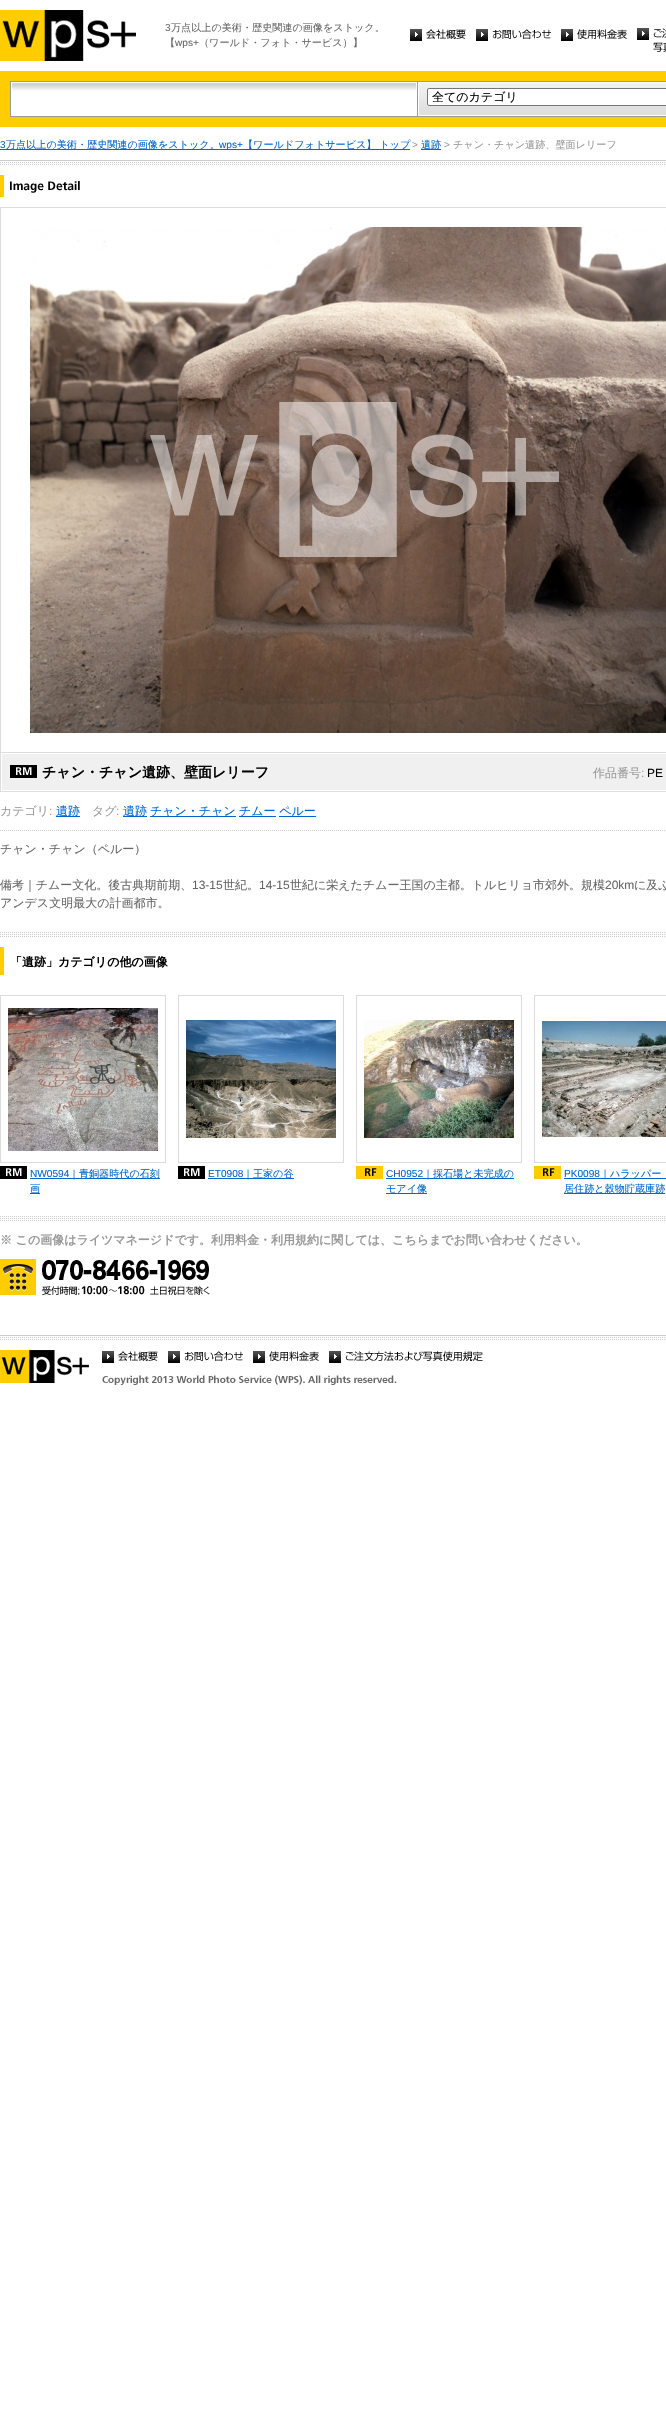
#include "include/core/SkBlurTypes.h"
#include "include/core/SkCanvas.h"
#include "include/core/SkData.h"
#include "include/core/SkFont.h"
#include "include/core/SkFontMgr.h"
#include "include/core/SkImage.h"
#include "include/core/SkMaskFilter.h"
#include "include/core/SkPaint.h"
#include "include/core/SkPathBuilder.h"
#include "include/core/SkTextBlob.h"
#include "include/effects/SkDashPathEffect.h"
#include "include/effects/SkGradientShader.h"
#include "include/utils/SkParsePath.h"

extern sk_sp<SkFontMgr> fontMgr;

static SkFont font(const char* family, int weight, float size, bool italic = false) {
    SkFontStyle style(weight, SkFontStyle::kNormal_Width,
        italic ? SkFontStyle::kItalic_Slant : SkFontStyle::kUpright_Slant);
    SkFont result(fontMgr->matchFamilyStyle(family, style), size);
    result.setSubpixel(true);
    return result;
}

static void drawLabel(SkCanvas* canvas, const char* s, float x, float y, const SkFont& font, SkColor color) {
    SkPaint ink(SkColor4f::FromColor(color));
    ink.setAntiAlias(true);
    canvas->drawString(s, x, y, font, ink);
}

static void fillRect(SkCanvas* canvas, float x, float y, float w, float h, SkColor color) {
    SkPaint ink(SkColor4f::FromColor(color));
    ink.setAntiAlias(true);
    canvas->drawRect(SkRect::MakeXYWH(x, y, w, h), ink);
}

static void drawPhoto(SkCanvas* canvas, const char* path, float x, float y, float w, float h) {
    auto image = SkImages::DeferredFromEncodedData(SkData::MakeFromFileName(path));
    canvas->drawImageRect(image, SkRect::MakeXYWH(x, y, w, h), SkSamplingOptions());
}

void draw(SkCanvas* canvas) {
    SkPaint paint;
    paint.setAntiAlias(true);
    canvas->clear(0xFFFFFFFF);
    drawPhoto(canvas, "assets/img1.png", 0, 10, 136, 51);
    SkFont font1 = font("Liberation Sans", 400, 10.1f);
    drawLabel(canvas, "3", 165, 31, font1, 0xFF666666);
    SkFont font2 = font("WenQuanYi Zen Hei", 500, 10.1f);
    drawLabel(canvas, "万点以上の美術・歴史関連の画像をストック。", 171, 31, font2, 0xFF666666);
    drawLabel(canvas, "【", 165, 46, font2, 0xFF666666);
    drawLabel(canvas, "wps+", 175, 46, font1, 0xFF666666);
    drawLabel(canvas, "（ワールド・フォト・サービス）】", 199, 46, font2, 0xFF666666);
    drawPhoto(canvas, "assets/img2.png", 410, 29, 56, 12);
    drawPhoto(canvas, "assets/img3.png", 476, 29, 75, 12);
    drawPhoto(canvas, "assets/img4.png", 561, 29, 66, 12);
    drawPhoto(canvas, "assets/img5.png", 637, 28, 29, 24);
    fillRect(canvas, 0, 71, 666, 56, 0xFFFFCC00);
    drawPhoto(canvas, "assets/img6.png", 10, 81, 407, 36);
    drawPhoto(canvas, "assets/img7.png", 417, 81, 249, 36);
    paint.setColor(0xFFFFFFFF);
    canvas->drawRoundRect(SkRect::MakeXYWH(427.5f, 88.5f, 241, 17), 1.5f, 1.5f, paint);
    paint.setStroke(true);
    paint.setStrokeWidth(1);
    paint.setColor(0xFF767676);
    canvas->drawRoundRect(SkRect::MakeXYWH(427.5f, 88.5f, 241, 17), 1.5f, 1.5f, paint);
    SkFont font3 = font("WenQuanYi Zen Hei", 500, 12);
    drawLabel(canvas, "全てのカテゴリ", 432, 101, font3, 0xFF000000);
    drawLabel(canvas, "3", 0, 148, font1, 0xFF0066CC);
    fillRect(canvas, 0, 149, 410, 1, 0xFF0066CC);
    drawLabel(canvas, "万点以上の美術・歴史関連の画像をストック。", 6, 148, font2, 0xFF0066CC);
    drawLabel(canvas, "wps+", 219, 148, font1, 0xFF0066CC);
    drawLabel(canvas, "【ワールドフォトサービス】 トップ", 243, 148, font2, 0xFF0066CC);
    drawLabel(canvas, ">", 412, 148, font1, 0xFF999999);
    fillRect(canvas, 421, 149, 20, 1, 0xFF0066CC);
    drawLabel(canvas, "遺跡", 421, 148, font2, 0xFF0066CC);
    drawLabel(canvas, ">", 444, 148, font1, 0xFF999999);
    drawLabel(canvas, "チャン・チャン遺跡、壁面レリーフ", 453, 148, font2, 0xFF999999);
    drawPhoto(canvas, "assets/img8.png", 0, 160, 666, 5);
    fillRect(canvas, 0, 175, 4, 22, 0xFFFFCC00);
    drawPhoto(canvas, "assets/img9.png", 10, 181, 70, 12);
    fillRect(canvas, 0, 207, 666, 1, 0xFFDCDCDC);
    fillRect(canvas, 0, 207, 1, 546, 0xFFDCDCDC);
    drawPhoto(canvas, "assets/img10.png", 30, 227, 636, 506);
    drawPhoto(canvas, "assets/img11.png", 0, 752, 666, 40);
    drawPhoto(canvas, "assets/img12.png", 1, 752, 665, 2);
    drawPhoto(canvas, "assets/img13.png", 10, 765, 27, 13);
    SkFont font4 = font("WenQuanYi Zen Hei", 700, 14);
    drawLabel(canvas, "チャン・チャン遺跡、壁面レリーフ", 42, 777, font4, 0xFF000000);
    drawLabel(canvas, "作品番号", 593, 777, font3, 0xFF999999);
    SkFont font5 = font("Liberation Sans", 400, 12);
    drawLabel(canvas, ":", 641, 777, font5, 0xFF999999);
    drawLabel(canvas, "PE", 647, 777, font5, 0xFF000000);
    drawLabel(canvas, "カテゴリ", 0, 815, font3, 0xFF999999);
    drawLabel(canvas, ":", 49, 815, font5, 0xFF999999);
    fillRect(canvas, 56, 816, 24, 1, 0xFF0066CC);
    drawLabel(canvas, "遺跡", 56, 815, font3, 0xFF0066CC);
    drawLabel(canvas, "タグ", 92, 815, font3, 0xFF999999);
    drawLabel(canvas, ":", 116, 815, font5, 0xFF999999);
    fillRect(canvas, 123, 816, 24, 1, 0xFF0066CC);
    drawLabel(canvas, "遺跡", 123, 815, font3, 0xFF0066CC);
    fillRect(canvas, 150, 816, 86, 1, 0xFF0066CC);
    drawLabel(canvas, "チャン・チャン", 150, 815, font3, 0xFF0066CC);
    fillRect(canvas, 239, 816, 37, 1, 0xFF0066CC);
    drawLabel(canvas, "チムー ペルー", 239, 815, font3, 0xFF0066CC);
    fillRect(canvas, 279, 816, 37, 1, 0xFF0066CC);
    drawPhoto(canvas, "assets/img14.png", 0, 830, 665, 1);
    drawLabel(canvas, "チャン・チャン（ペルー）", 0, 853, font3, 0xFF666666);
    drawLabel(canvas, "備考｜チムー文化。後古典期前期、", 0, 889, font3, 0xFF666666);
    drawLabel(canvas, "13-15", 192, 889, font5, 0xFF666666);
    drawLabel(canvas, "世紀。", 223, 889, font3, 0xFF666666);
    drawLabel(canvas, "14-15", 259, 889, font5, 0xFF666666);
    drawLabel(canvas, "世紀に栄えたチムー王国の主都。トルヒリョ市郊外。規模", 290, 889, font3, 0xFF666666);
    drawLabel(canvas, "20km", 605, 889, font5, 0xFF666666);
    drawLabel(canvas, "に及ぶ", 634, 889, font3, 0xFF666666);
    drawLabel(canvas, "アンデス文明最大の計画都市。", 0, 907, font3, 0xFF666666);
    drawPhoto(canvas, "assets/img15.png", 0, 932, 665, 5);
    fillRect(canvas, 0, 947, 4, 28, 0xFFFFCC00);
    SkFont font6 = font("WenQuanYi Zen Hei", 700, 12);
    drawLabel(canvas, "「遺跡」カテゴリの他の画像", 10, 966, font6, 0xFF000000);
    fillRect(canvas, 0, 995, 166, 1, 0xFFDCDCDC);
    fillRect(canvas, 165, 995, 1, 168, 0xFFDCDCDC);
    fillRect(canvas, 0, 1162, 166, 1, 0xFFDCDCDC);
    fillRect(canvas, 0, 995, 1, 168, 0xFFDCDCDC);
    drawPhoto(canvas, "assets/img16.png", 8, 1008, 150, 143);
    drawPhoto(canvas, "assets/img13.png", 0, 1166, 27, 13);
    drawLabel(canvas, "NW0594", 30, 1177, font1, 0xFF0066CC);
    fillRect(canvas, 30, 1178, 130, 1, 0xFF0066CC);
    drawLabel(canvas, "｜青銅器時代の石刻", 69, 1177, font2, 0xFF0066CC);
    fillRect(canvas, 30, 1193, 10, 1, 0xFF0066CC);
    drawLabel(canvas, "画", 30, 1192, font2, 0xFF0066CC);
    fillRect(canvas, 178, 995, 166, 1, 0xFFDCDCDC);
    fillRect(canvas, 343, 995, 1, 168, 0xFFDCDCDC);
    fillRect(canvas, 178, 1162, 166, 1, 0xFFDCDCDC);
    fillRect(canvas, 178, 995, 1, 168, 0xFFDCDCDC);
    drawPhoto(canvas, "assets/img17.png", 186, 1020, 150, 118);
    drawPhoto(canvas, "assets/img13.png", 178, 1166, 27, 13);
    drawLabel(canvas, "ET0908", 208, 1177, font1, 0xFF0066CC);
    fillRect(canvas, 208, 1178, 86, 1, 0xFF0066CC);
    drawLabel(canvas, "｜王家の谷", 243, 1177, font2, 0xFF0066CC);
    fillRect(canvas, 356, 995, 166, 1, 0xFFDCDCDC);
    fillRect(canvas, 521, 995, 1, 168, 0xFFDCDCDC);
    fillRect(canvas, 356, 1162, 166, 1, 0xFFDCDCDC);
    fillRect(canvas, 356, 995, 1, 168, 0xFFDCDCDC);
    drawPhoto(canvas, "assets/img18.png", 364, 1020, 150, 118);
    drawPhoto(canvas, "assets/img19.png", 356, 1166, 27, 13);
    drawLabel(canvas, "CH0952", 386, 1177, font1, 0xFF0066CC);
    fillRect(canvas, 386, 1178, 128, 1, 0xFF0066CC);
    drawLabel(canvas, "｜採石場と未完成の", 423, 1177, font2, 0xFF0066CC);
    fillRect(canvas, 386, 1193, 41, 1, 0xFF0066CC);
    drawLabel(canvas, "モアイ像", 386, 1192, font2, 0xFF0066CC);
    fillRect(canvas, 534, 995, 132, 1, 0xFFDCDCDC);
    fillRect(canvas, 534, 1162, 132, 1, 0xFFDCDCDC);
    fillRect(canvas, 534, 995, 1, 168, 0xFFDCDCDC);
    drawPhoto(canvas, "assets/img20.png", 542, 1021, 124, 116);
    drawPhoto(canvas, "assets/img19.png", 534, 1166, 27, 13);
    drawLabel(canvas, "PK0098", 564, 1177, font1, 0xFF0066CC);
    fillRect(canvas, 564, 1178, 102, 1, 0xFF0066CC);
    drawLabel(canvas, "｜ハラッパー", 600, 1177, font2, 0xFF0066CC);
    fillRect(canvas, 564, 1193, 101, 1, 0xFF0066CC);
    drawLabel(canvas, "居住跡と穀物貯蔵庫跡", 564, 1192, font2, 0xFF0066CC);
    drawPhoto(canvas, "assets/img15.png", 0, 1216, 665, 5);
    drawLabel(canvas, "※ この画像はライツマネージドです。利用料金・利用規約に関しては、こちらまでお問い合わせください。", 0, 1244, font6, 0xFF999999);
    drawPhoto(canvas, "assets/img21.png", 0, 1259, 210, 36);
    drawPhoto(canvas, "assets/img8.png", 0, 1335, 666, 5);
    drawPhoto(canvas, "assets/img22.png", 0, 1350, 89, 33);
    drawPhoto(canvas, "assets/img2.png", 102, 1351, 56, 12);
    drawPhoto(canvas, "assets/img3.png", 168, 1351, 75, 12);
    drawPhoto(canvas, "assets/img4.png", 253, 1351, 66, 12);
    drawPhoto(canvas, "assets/img23.png", 329, 1351, 154, 12);
    drawPhoto(canvas, "assets/img24.png", 102, 1375, 295, 10);
}
